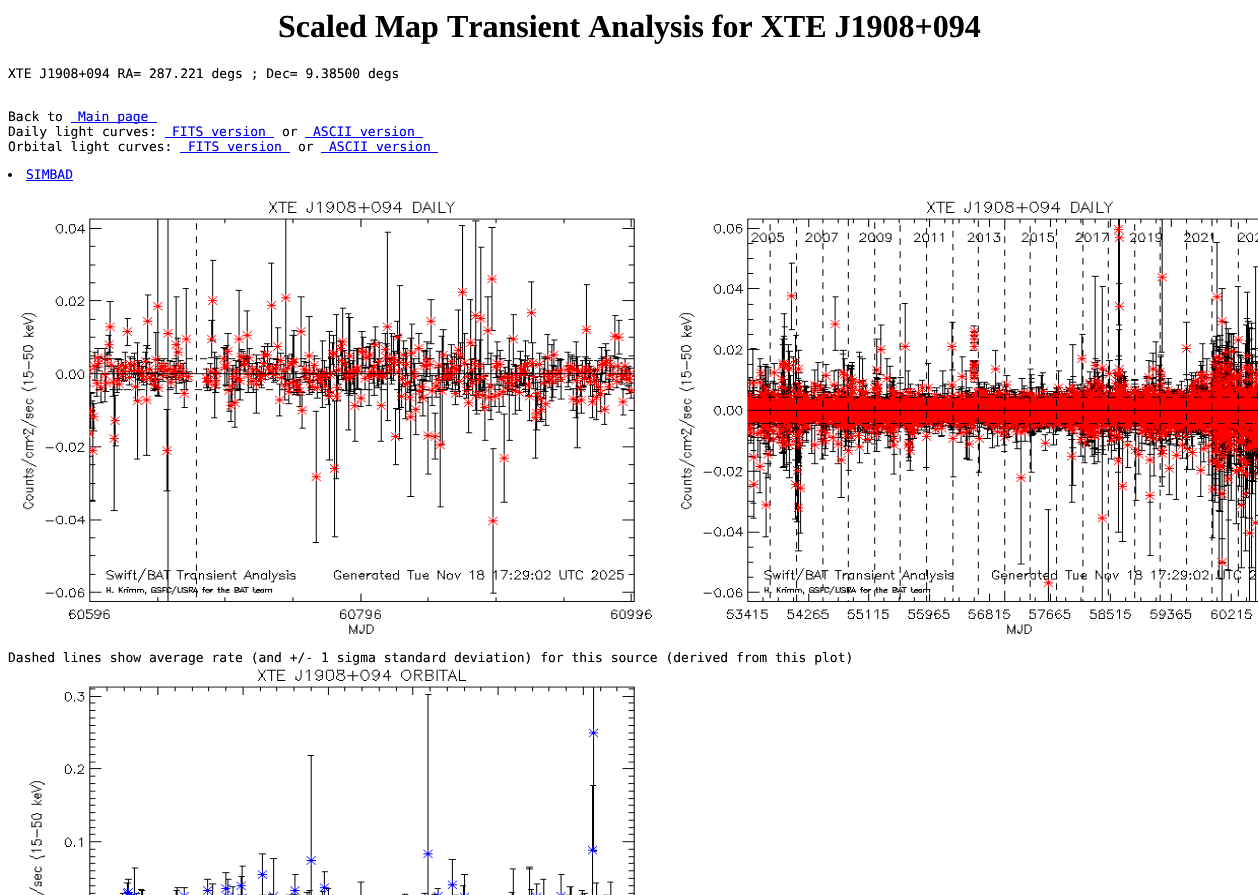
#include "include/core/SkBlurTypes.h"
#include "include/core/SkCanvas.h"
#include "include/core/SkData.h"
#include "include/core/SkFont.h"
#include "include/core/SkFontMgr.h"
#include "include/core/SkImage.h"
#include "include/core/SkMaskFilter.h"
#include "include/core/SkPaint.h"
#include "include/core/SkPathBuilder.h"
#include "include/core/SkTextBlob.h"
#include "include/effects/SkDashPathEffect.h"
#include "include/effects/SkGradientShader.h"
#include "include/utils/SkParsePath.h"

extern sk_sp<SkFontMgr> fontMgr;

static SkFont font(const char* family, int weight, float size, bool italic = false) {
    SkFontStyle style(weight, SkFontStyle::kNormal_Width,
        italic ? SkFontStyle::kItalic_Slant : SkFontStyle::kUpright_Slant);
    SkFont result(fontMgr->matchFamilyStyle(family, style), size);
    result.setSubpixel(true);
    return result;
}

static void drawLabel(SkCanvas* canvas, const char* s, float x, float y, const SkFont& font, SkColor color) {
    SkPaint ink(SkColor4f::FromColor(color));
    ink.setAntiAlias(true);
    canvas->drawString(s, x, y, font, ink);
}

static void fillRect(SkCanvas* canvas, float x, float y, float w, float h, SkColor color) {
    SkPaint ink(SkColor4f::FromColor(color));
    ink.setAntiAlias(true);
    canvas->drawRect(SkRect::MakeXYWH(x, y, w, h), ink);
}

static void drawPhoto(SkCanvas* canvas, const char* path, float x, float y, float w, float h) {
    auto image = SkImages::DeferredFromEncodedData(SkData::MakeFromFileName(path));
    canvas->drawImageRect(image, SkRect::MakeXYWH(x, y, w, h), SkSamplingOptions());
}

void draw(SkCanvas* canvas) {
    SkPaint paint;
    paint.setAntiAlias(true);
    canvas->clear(0xFFFFFFFF);
    SkFont font1 = font("Liberation Serif", 700, 32);
    drawLabel(canvas, "Scaled Map Transient Analysis for XTE J1908+094", 278, 37, font1, 0xFF000000);
    SkFont font2 = font("DejaVu Sans Mono", 400, 13);
    drawLabel(canvas, "XTE J1908+094 RA= 287.221 degs ; Dec= 9.38500 degs", 8, 78, font2, 0xFF000000);
    drawLabel(canvas, "Back to", 8, 121, font2, 0xFF000000);
    fillRect(canvas, 71, 122, 86, 1, 0xFF0000EE);
    drawLabel(canvas, "Main page", 78, 121, font2, 0xFF0000EE);
    drawLabel(canvas, "Daily light curves:", 8, 136, font2, 0xFF000000);
    drawLabel(canvas, "FITS version", 172, 136, font2, 0xFF0000EE);
    fillRect(canvas, 165, 137, 109, 1, 0xFF0000EE);
    drawLabel(canvas, "or", 282, 136, font2, 0xFF000000);
    drawLabel(canvas, "ASCII version", 313, 136, font2, 0xFF0000EE);
    fillRect(canvas, 305, 137, 118, 1, 0xFF0000EE);
    drawLabel(canvas, "Orbital light curves:", 8, 151, font2, 0xFF000000);
    drawLabel(canvas, "FITS version", 188, 151, font2, 0xFF0000EE);
    fillRect(canvas, 180, 152, 110, 1, 0xFF0000EE);
    drawLabel(canvas, "or", 298, 151, font2, 0xFF000000);
    drawLabel(canvas, "ASCII version", 329, 151, font2, 0xFF0000EE);
    fillRect(canvas, 321, 152, 117, 1, 0xFF0000EE);
    paint.setColor(0xFF000000);
    canvas->drawCircle(10, 175, 2, paint);
    drawLabel(canvas, "SIMBAD", 26, 179, font2, 0xFF0000EE);
    fillRect(canvas, 26, 180, 47, 1, 0xFF0000EE);
    drawPhoto(canvas, "assets/img1.png", 21, 201, 631, 433);
    drawPhoto(canvas, "assets/img2.png", 679, 201, 579, 433);
    drawLabel(canvas, "Dashed lines show average rate (and +/- 1 sigma standard deviation) for this source (derived from this plot)", 8, 662, font2, 0xFF000000);
    drawPhoto(canvas, "assets/img3.png", 29, 669, 606, 226);
}
